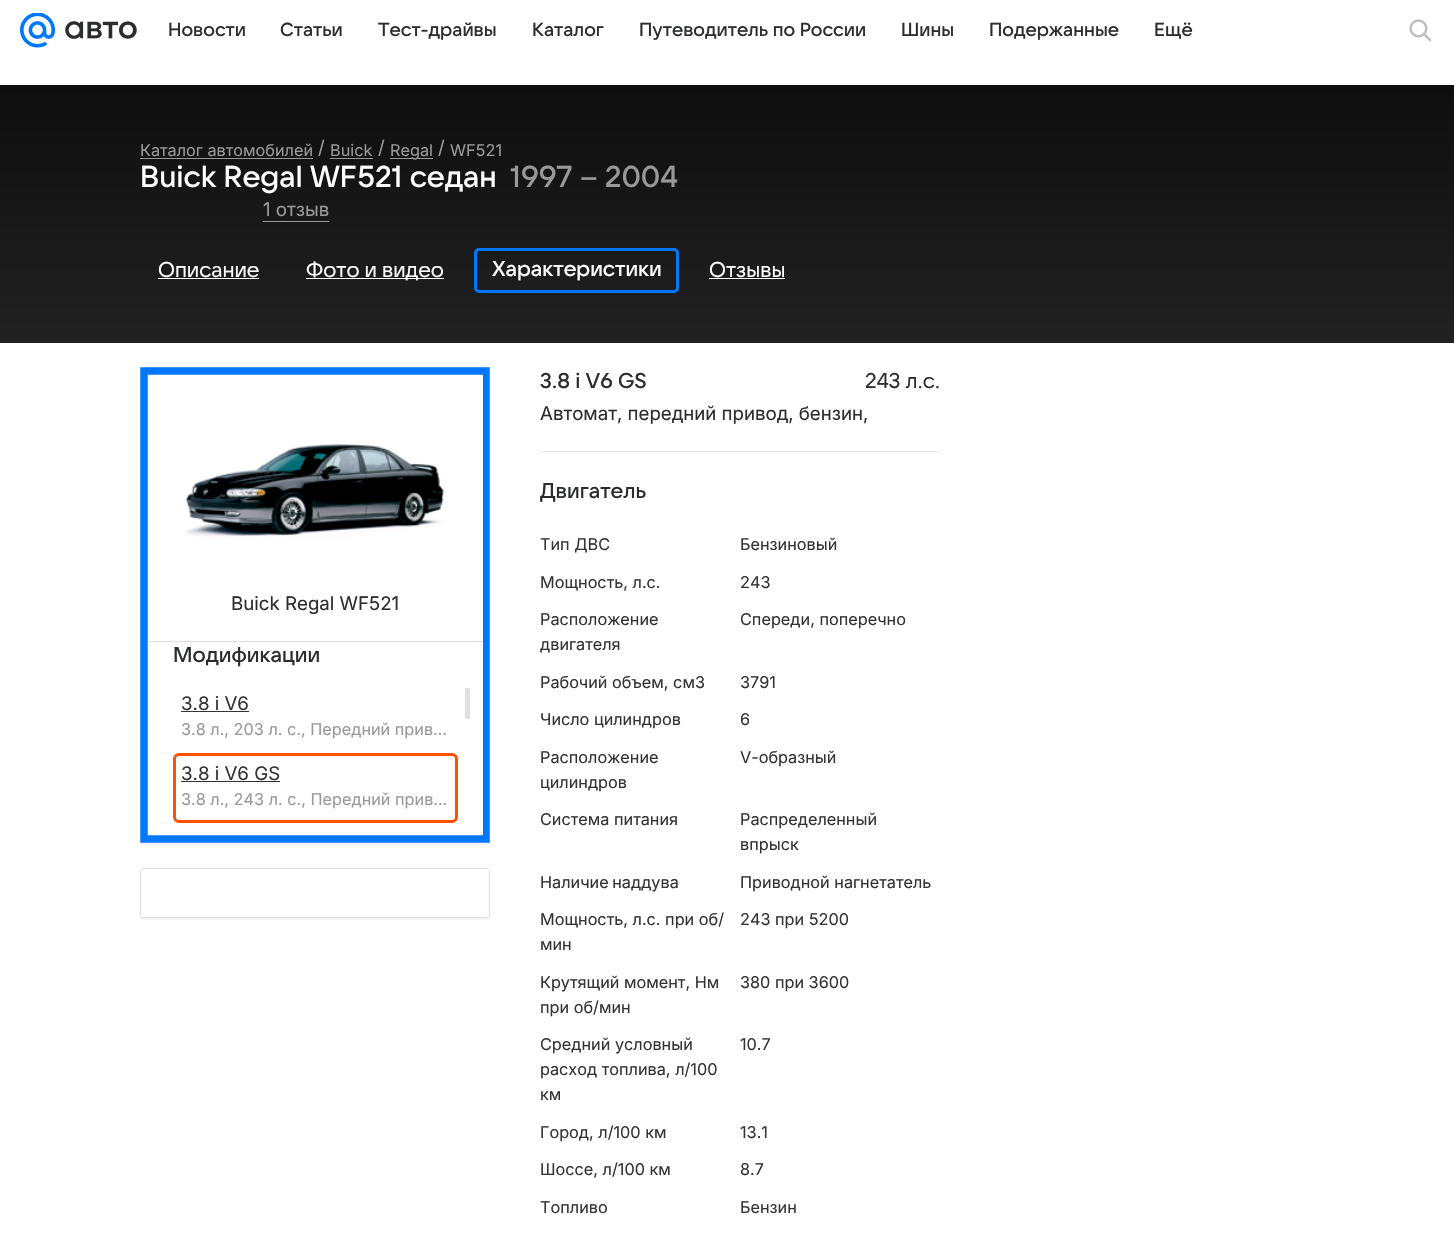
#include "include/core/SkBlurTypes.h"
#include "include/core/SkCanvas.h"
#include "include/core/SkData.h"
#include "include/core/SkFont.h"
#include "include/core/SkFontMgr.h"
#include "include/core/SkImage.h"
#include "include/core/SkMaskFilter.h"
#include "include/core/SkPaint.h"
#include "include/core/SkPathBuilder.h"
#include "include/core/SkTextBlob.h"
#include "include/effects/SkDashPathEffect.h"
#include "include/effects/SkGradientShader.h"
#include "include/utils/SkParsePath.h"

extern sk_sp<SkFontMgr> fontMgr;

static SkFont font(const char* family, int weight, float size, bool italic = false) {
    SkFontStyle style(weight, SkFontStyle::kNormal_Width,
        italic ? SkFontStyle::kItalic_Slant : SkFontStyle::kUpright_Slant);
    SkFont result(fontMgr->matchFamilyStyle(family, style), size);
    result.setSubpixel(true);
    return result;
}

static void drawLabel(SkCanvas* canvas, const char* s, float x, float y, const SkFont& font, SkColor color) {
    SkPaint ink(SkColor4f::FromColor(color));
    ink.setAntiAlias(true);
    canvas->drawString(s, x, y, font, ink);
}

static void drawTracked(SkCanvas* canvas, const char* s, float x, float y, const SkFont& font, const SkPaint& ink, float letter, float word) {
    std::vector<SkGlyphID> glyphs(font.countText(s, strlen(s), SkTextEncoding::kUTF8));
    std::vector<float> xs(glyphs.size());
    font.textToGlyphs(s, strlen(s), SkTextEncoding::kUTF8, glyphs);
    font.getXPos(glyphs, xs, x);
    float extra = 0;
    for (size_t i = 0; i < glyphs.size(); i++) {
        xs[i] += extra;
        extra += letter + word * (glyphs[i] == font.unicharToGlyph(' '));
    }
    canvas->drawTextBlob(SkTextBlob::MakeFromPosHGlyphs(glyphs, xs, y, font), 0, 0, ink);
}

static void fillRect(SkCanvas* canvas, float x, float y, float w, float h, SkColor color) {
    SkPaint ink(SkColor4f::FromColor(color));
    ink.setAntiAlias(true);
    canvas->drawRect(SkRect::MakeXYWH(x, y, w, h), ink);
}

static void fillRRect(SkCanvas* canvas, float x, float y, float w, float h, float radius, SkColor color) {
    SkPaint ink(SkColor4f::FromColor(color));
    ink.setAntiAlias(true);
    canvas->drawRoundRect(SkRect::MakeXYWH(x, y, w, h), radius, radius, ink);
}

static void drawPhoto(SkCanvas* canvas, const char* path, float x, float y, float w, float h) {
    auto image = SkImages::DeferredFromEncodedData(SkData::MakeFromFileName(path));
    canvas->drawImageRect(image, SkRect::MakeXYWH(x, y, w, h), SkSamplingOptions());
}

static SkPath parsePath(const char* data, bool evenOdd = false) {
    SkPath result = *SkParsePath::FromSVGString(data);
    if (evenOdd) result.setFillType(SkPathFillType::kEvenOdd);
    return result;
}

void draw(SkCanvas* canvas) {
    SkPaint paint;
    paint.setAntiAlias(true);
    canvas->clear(0xFFFFFFFF);
    drawPhoto(canvas, "assets/img1.png", 20, 13, 35, 35);
    drawPhoto(canvas, "assets/img2.png", 65, 21, 72, 18);
    SkFont font1 = font("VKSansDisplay", 500, 18.75f);
    drawLabel(canvas, "Новости", 168, 36, font1, 0xFF2C2D2E);
    drawLabel(canvas, "Статьи", 280, 36, font1, 0xFF2C2D2E);
    drawLabel(canvas, "Тест-драйвы", 378, 36, font1, 0xFF2C2D2E);
    drawLabel(canvas, "Каталог", 532, 36, font1, 0xFF2C2D2E);
    drawLabel(canvas, "Путеводитель по России", 639, 36, font1, 0xFF2C2D2E);
    drawLabel(canvas, "Шины", 901, 36, font1, 0xFF2C2D2E);
    drawLabel(canvas, "Подержанные", 989, 36, font1, 0xFF2C2D2E);
    drawLabel(canvas, "Ещё", 1154, 36, font1, 0xFF2C2D2E);
    drawPhoto(canvas, "assets/img3.png", 1409, 19, 23, 23);
    {
        const SkColor colors[] = {0xFF0E0E0E, 0xFF212121};
        const float stops[] = {0, 1};
        const SkPoint ends[] = {{728, 85}, {728, 343}};
        paint.setShader(SkGradientShader::MakeLinear(ends, colors, stops, 2, SkTileMode::kClamp));
        paint.setAlpha(255);
    }
    canvas->drawRect(SkRect::MakeXYWH(0, 85, 1454, 258), paint);
    SkFont font2 = font("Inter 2", 400, 16.25f);
    drawLabel(canvas, "Каталог автомобилей", 140, 156, font2, 0xFF999999);
    fillRect(canvas, 140, 158, 173, 1, 0xFF999999);
    SkFont font3 = font("Inter", 400, 18.75f);
    drawLabel(canvas, "/", 318, 154, font3, 0xFF999999);
    drawLabel(canvas, "Buick", 330, 156, font2, 0xFF999999);
    fillRect(canvas, 330, 158, 43, 1, 0xFF999999);
    drawLabel(canvas, "/", 378, 154, font3, 0xFF999999);
    fillRect(canvas, 390, 158, 43, 1, 0xFF999999);
    drawLabel(canvas, "Regal", 390, 156, font2, 0xFF999999);
    drawLabel(canvas, "/", 438, 154, font3, 0xFF999999);
    drawLabel(canvas, "WF521", 450, 156, font2, 0xFF999999);
    SkFont font4 = font("VKSansDisplay", 500, 30);
    drawLabel(canvas, "Buick Regal WF521 седан", 140, 187, font4, 0xFFFFFFFF);
    drawLabel(canvas, "1997 – 2004", 510, 187, font4, 0xFF999999);
    drawLabel(canvas, "1 отзыв", 263, 216, font3, 0xFF999999);
    fillRect(canvas, 263, 221, 66, 1, 0xFF999999);
    SkFont font5 = font("VKSansDisplay", 400, 21.25f);
    drawLabel(canvas, "Описание", 158, 277, font5, 0xFFFFFFFF);
    fillRect(canvas, 158, 278, 101, 1, 0xFFFFFFFF);
    fillRect(canvas, 306, 278, 138, 1, 0xFFFFFFFF);
    drawLabel(canvas, "Фото и видео", 306, 277, font5, 0xFFFFFFFF);
    paint.setStroke(true);
    paint.setStrokeWidth(3);
    paint.setShader(nullptr);
    paint.setColor(0xFF0077FF);
    canvas->drawRoundRect(SkRect::MakeXYWH(475.5f, 249.5f, 202, 42), 3.5f, 3.5f, paint);
    SkFont font6 = font("VKSansDisplay", 500, 21.25f);
    drawLabel(canvas, "Характеристики", 492, 276, font6, 0xFFFFFFFF);
    drawLabel(canvas, "Отзывы", 709, 277, font5, 0xFFFFFFFF);
    fillRect(canvas, 709, 278, 76, 1, 0xFFFFFFFF);
    paint.setStroke(false);
    paint.setColor(0xFFF5F5F5);
    canvas->drawPath(parsePath("M140 840C140 842 140 845 142 845H488C490 845 490 842 490 840C490 841 489 842 488 842H142C141 842 140 841 140 840Z"), paint);
    paint.setStroke(true);
    paint.setStrokeWidth(7.5f);
    paint.setColor(0xFF0077FF);
    canvas->drawPath(parsePath("M144 371H486V839H144Z"), paint);
    fillRect(canvas, 482, 375, 1, 460, 0xFFFFFFFF);
    fillRect(canvas, 148, 641, 335, 1, 0xFFDEDEDE);
    drawPhoto(canvas, "assets/img4.png", 185, 444, 260, 95);
    drawLabel(canvas, "Buick Regal WF521", 231, 610, font3, 0xFF2C2D2E);
    drawLabel(canvas, "Модификации", 173, 662, font6, 0xFF2C2D2E);
    drawLabel(canvas, "3.8 i V6", 181, 710, font3, 0xFF333333);
    fillRect(canvas, 181, 711, 68, 1, 0xFF333333);
    drawLabel(canvas, "3.8 л., 203 л. с., Передний прив…", 181, 735, font2, 0xFF999999);
    paint.setStrokeWidth(3);
    paint.setColor(0xFFFF4F00);
    canvas->drawRoundRect(SkRect::MakeXYWH(174.5f, 754.5f, 282, 67), 4.5f, 4.5f, paint);
    drawLabel(canvas, "3.8 i V6 GS", 181, 780, font3, 0xFF333333);
    fillRect(canvas, 181, 781, 99, 1, 0xFF333333);
    drawLabel(canvas, "3.8 л., 243 л. с., Передний прив…", 181, 805, font2, 0xFF999999);
    fillRRect(canvas, 465, 688, 5, 31, 2.5f, 0xFFE0E0E0);
    paint.setStroke(false);
    paint.setColor(0xFFF5F5F5);
    canvas->drawPath(parsePath("M140 915C140 917 140 920 142 920H488C490 920 490 917 490 915C490 916 489 918 488 918H142C141 918 140 916 140 915Z"), paint);
    paint.setStroke(true);
    paint.setStrokeWidth(1);
    paint.setColor(0xFFDEDEDE);
    canvas->drawRoundRect(SkRect::MakeXYWH(140.5f, 868.5f, 349, 49), 2, 2, paint);
    fillRect(canvas, 141, 869, 348, 1, 0xFFFFFFFF);
    drawLabel(canvas, "3.8 i V6 GS", 540, 388, font6, 0xFF2C2D2E);
    drawLabel(canvas, "243 л.с.", 865, 388, font5, 0xFF2C2D2E);
    drawLabel(canvas, "Автомат, передний привод, бензин,", 540, 420, font3, 0xFF2C2D2E);
    fillRect(canvas, 540, 451, 400, 1, 0xFFE5E5E5);
    drawLabel(canvas, "Двигатель", 540, 498, font6, 0xFF2C2D2E);
    drawLabel(canvas, "Тип ДВС", 540, 550, font2, 0xFF333333);
    drawLabel(canvas, "Бензиновый", 740, 550, font2, 0xFF333333);
    drawLabel(canvas, "Мощность, л.с.", 540, 588, font2, 0xFF333333);
    drawLabel(canvas, "243", 740, 588, font2, 0xFF333333);
    drawLabel(canvas, "Расположение", 540, 625, font2, 0xFF333333);
    drawLabel(canvas, "двигателя", 540, 650, font2, 0xFF333333);
    drawLabel(canvas, "Спереди, поперечно", 740, 625, font2, 0xFF333333);
    drawLabel(canvas, "Рабочий объем, см3", 540, 688, font2, 0xFF333333);
    drawLabel(canvas, "3791", 740, 688, font2, 0xFF333333);
    drawLabel(canvas, "Число цилиндров", 540, 725, font2, 0xFF333333);
    drawLabel(canvas, "6", 740, 725, font2, 0xFF333333);
    drawLabel(canvas, "Расположение", 540, 763, font2, 0xFF333333);
    drawLabel(canvas, "цилиндров", 540, 788, font2, 0xFF333333);
    drawLabel(canvas, "V-образный", 740, 763, font2, 0xFF333333);
    drawLabel(canvas, "Система питания", 540, 825, font2, 0xFF333333);
    drawLabel(canvas, "Распределенный", 740, 825, font2, 0xFF333333);
    drawLabel(canvas, "впрыск", 740, 850, font2, 0xFF333333);
    paint.setStroke(false);
    paint.setColor(0xFF333333);
    drawTracked(canvas, "Наличие наддува", 540, 888, font2, paint, 0, -1);
    drawLabel(canvas, "Приводной нагнетатель", 740, 888, font2, 0xFF333333);
    drawLabel(canvas, "Мощность, л.с. при об/", 540, 925, font2, 0xFF333333);
    drawLabel(canvas, "мин", 540, 950, font2, 0xFF333333);
    drawLabel(canvas, "243 при 5200", 740, 925, font2, 0xFF333333);
    drawLabel(canvas, "Крутящий момент, Нм", 540, 988, font2, 0xFF333333);
    drawLabel(canvas, "при об/мин", 540, 1013, font2, 0xFF333333);
    drawLabel(canvas, "380 при 3600", 740, 988, font2, 0xFF333333);
    drawLabel(canvas, "Средний условный", 540, 1050, font2, 0xFF333333);
    drawLabel(canvas, "расход топлива, л/100", 540, 1075, font2, 0xFF333333);
    drawLabel(canvas, "км", 540, 1100, font2, 0xFF333333);
    drawLabel(canvas, "10.7", 740, 1050, font2, 0xFF333333);
    drawLabel(canvas, "Город, л/100 км", 540, 1138, font2, 0xFF333333);
    drawLabel(canvas, "13.1", 740, 1138, font2, 0xFF333333);
    drawLabel(canvas, "Шоссе, л/100 км", 540, 1175, font2, 0xFF333333);
    drawLabel(canvas, "8.7", 740, 1175, font2, 0xFF333333);
    drawLabel(canvas, "Топливо", 540, 1213, font2, 0xFF333333);
    drawLabel(canvas, "Бензин", 740, 1213, font2, 0xFF333333);
}
